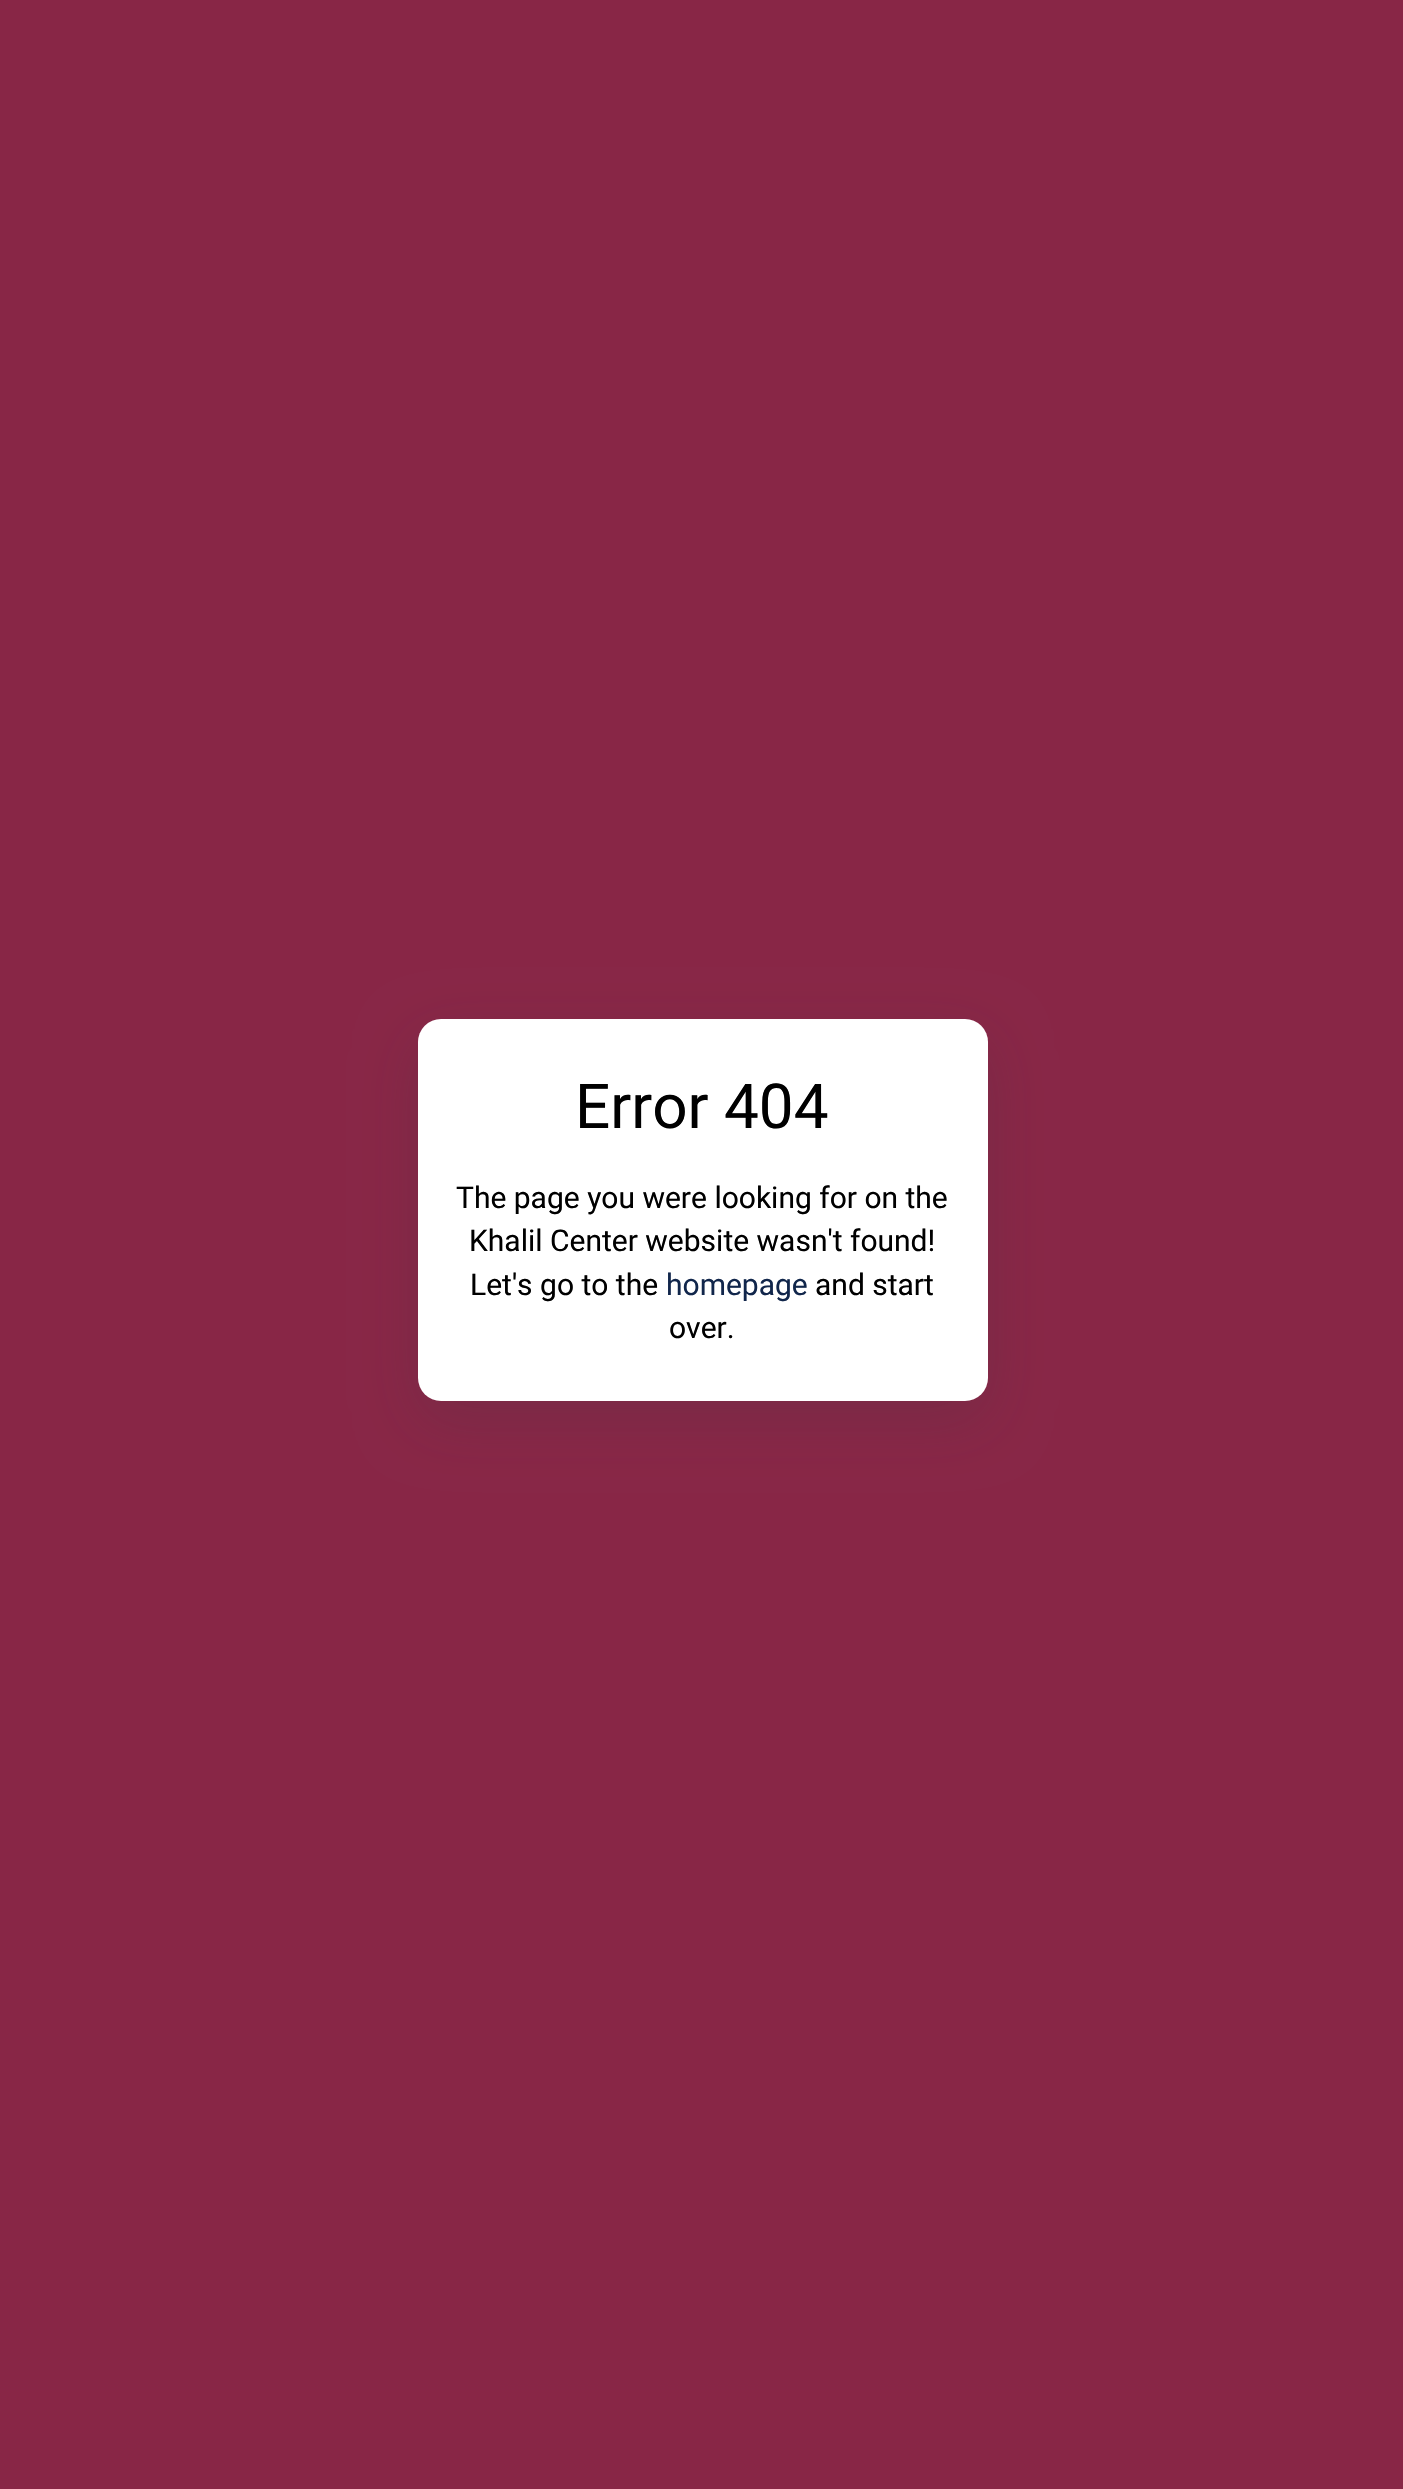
#include "include/core/SkBlurTypes.h"
#include "include/core/SkCanvas.h"
#include "include/core/SkData.h"
#include "include/core/SkFont.h"
#include "include/core/SkFontMgr.h"
#include "include/core/SkImage.h"
#include "include/core/SkMaskFilter.h"
#include "include/core/SkPaint.h"
#include "include/core/SkPathBuilder.h"
#include "include/core/SkTextBlob.h"
#include "include/effects/SkDashPathEffect.h"
#include "include/effects/SkGradientShader.h"
#include "include/utils/SkParsePath.h"

extern sk_sp<SkFontMgr> fontMgr;

static SkFont font(const char* family, int weight, float size, bool italic = false) {
    SkFontStyle style(weight, SkFontStyle::kNormal_Width,
        italic ? SkFontStyle::kItalic_Slant : SkFontStyle::kUpright_Slant);
    SkFont result(fontMgr->matchFamilyStyle(family, style), size);
    result.setSubpixel(true);
    return result;
}

static void drawLabel(SkCanvas* canvas, const char* s, float x, float y, const SkFont& font, SkColor color) {
    SkPaint ink(SkColor4f::FromColor(color));
    ink.setAntiAlias(true);
    canvas->drawString(s, x, y, font, ink);
}

static void fillRRect(SkCanvas* canvas, float x, float y, float w, float h, float radius, SkColor color) {
    SkPaint ink(SkColor4f::FromColor(color));
    ink.setAntiAlias(true);
    canvas->drawRoundRect(SkRect::MakeXYWH(x, y, w, h), radius, radius, ink);
}

void draw(SkCanvas* canvas) {
    SkPaint paint;
    paint.setAntiAlias(true);
    canvas->clear(0xFF882646);
    paint.setColor(0x2E343A40);
    paint.setMaskFilter(SkMaskFilter::MakeBlur(kNormal_SkBlurStyle, 30));
    canvas->drawRoundRect(SkRect::MakeXYWH(418, 1039, 570, 382), 23, 23, paint);
    paint.setMaskFilter(nullptr);
    fillRRect(canvas, 418, 1019, 570, 382, 23, 0xFFFFFFFF);
    SkFont font1 = font("Roboto", 400, 62);
    drawLabel(canvas, "Error 404", 575, 1128, font1, 0xFF000000);
    SkFont font2 = font("Roboto", 400, 30);
    drawLabel(canvas, "The page you were looking for on the", 456, 1208, font2, 0xFF000000);
    drawLabel(canvas, "Khalil Center website wasn't found!", 469, 1251, font2, 0xFF000000);
    drawLabel(canvas, "Let's go to the", 470, 1295, font2, 0xFF000000);
    drawLabel(canvas, "homepage", 666, 1295, font2, 0xFF11264B);
    drawLabel(canvas, "and start", 815, 1295, font2, 0xFF000000);
    drawLabel(canvas, "over.", 669, 1338, font2, 0xFF000000);
}
